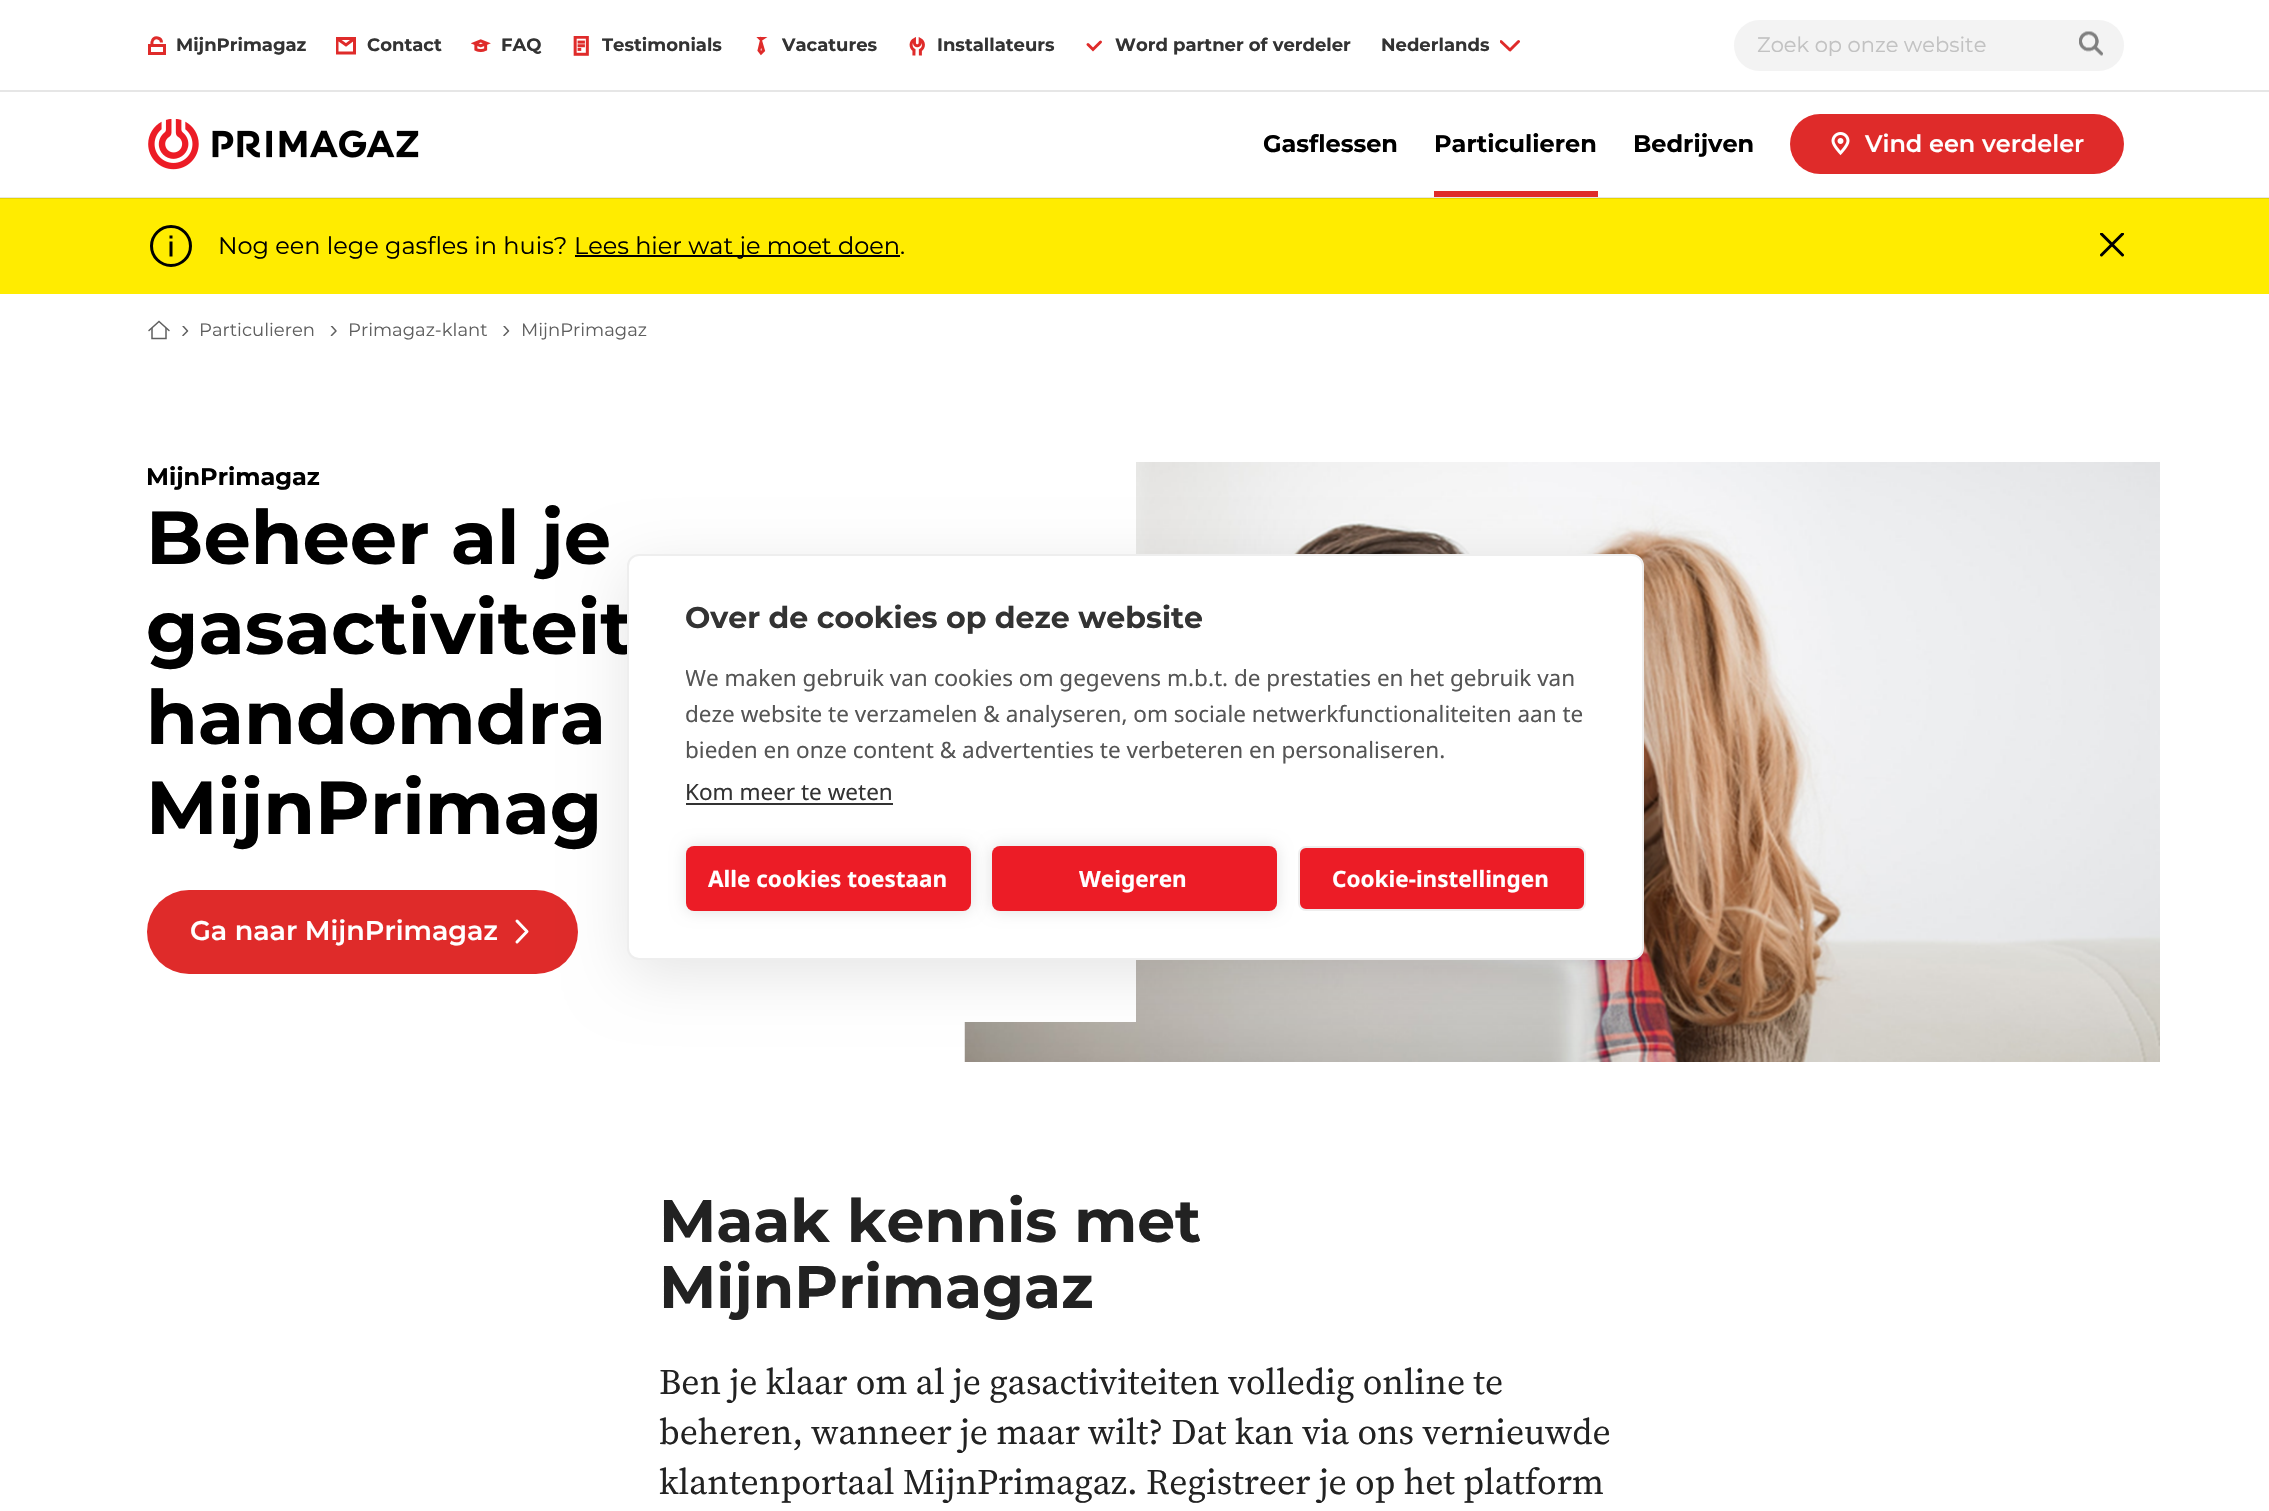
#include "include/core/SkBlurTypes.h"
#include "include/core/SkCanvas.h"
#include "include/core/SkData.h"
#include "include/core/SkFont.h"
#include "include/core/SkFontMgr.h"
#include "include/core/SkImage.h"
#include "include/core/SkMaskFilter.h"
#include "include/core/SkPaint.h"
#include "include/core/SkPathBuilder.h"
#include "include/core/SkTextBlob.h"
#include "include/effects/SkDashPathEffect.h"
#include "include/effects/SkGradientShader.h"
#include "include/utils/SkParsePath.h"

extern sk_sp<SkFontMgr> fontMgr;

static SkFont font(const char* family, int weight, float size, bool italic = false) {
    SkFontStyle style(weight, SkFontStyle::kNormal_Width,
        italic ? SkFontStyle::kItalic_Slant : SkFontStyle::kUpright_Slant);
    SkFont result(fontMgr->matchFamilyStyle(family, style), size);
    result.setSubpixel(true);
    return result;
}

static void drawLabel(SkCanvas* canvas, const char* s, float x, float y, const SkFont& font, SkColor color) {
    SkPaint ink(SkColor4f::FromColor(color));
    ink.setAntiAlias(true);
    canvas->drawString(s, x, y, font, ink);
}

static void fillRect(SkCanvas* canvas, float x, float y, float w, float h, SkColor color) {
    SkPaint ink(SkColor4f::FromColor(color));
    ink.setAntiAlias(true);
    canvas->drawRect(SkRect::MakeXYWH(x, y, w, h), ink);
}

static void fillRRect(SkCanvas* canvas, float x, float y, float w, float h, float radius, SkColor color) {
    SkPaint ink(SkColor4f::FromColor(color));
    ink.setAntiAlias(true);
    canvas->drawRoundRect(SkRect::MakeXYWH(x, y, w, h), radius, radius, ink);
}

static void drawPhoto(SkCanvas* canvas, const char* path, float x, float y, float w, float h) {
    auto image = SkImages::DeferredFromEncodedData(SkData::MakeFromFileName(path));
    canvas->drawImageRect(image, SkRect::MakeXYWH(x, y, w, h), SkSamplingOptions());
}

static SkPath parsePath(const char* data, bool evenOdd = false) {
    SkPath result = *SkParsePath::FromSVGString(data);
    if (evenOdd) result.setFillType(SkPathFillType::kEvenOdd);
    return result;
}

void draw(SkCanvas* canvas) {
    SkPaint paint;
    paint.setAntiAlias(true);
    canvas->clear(0xFFFFFFFF);
    fillRect(canvas, 0, 197, 2269, 1, 0xFFE6E6E6);
    fillRect(canvas, 0, 90, 2269, 2, 0xFFE6E6E6);
    paint.setStroke(true);
    paint.setStrokeWidth(3);
    paint.setColor(0xFFDF2B2A);
    canvas->drawRect(SkRect::MakeXYWH(149.5f, 45.5f, 15, 8), paint);
    canvas->drawPath(parsePath("M161.5 42.5C161.5 37.5 154.5 36 152.5 40.5C151.5 42 152 44 152 46"), paint);
    SkFont font1 = font("Montserrat", 700, 18);
    drawLabel(canvas, "MijnPrimagaz", 176, 51, font1, 0xFF333333);
    canvas->save();
    canvas->clipRect(SkRect::MakeXYWH(336, 36, 20, 20));
    paint.setStrokeCap(SkPaint::kRound_Cap);
    canvas->drawPath(parsePath("M354.5 38.5L346 45L337 38.5M337 38.5H354.5V53H337Z"), paint);
    canvas->restore();
    drawLabel(canvas, "Contact", 367, 51, font1, 0xFF333333);
    drawPhoto(canvas, "assets/img1.png", 471, 39, 20, 14);
    drawLabel(canvas, "FAQ", 501, 51, font1, 0xFF333333);
    drawPhoto(canvas, "assets/img2.png", 573, 36, 16, 20);
    drawLabel(canvas, "Testimonials", 602, 51, font1, 0xFF333333);
    paint.setStrokeCap(SkPaint::kButt_Cap);
    canvas->drawPath(parsePath("M761 39.5L762.5 38.5H760ZM761 42L759 50.5L761 53L763.5 50.5Z"), paint);
    drawLabel(canvas, "Vacatures", 782, 51, font1, 0xFF333333);
    drawPhoto(canvas, "assets/img3.png", 909, 37, 16, 19);
    drawLabel(canvas, "Installateurs", 937, 51, font1, 0xFF333333);
    paint.setStrokeCap(SkPaint::kRound_Cap);
    canvas->drawPath(parsePath("M1100.5 42L1093 49.5L1088 44.5"), paint);
    drawLabel(canvas, "Word partner of verdeler", 1115, 51, font1, 0xFF333333);
    drawLabel(canvas, "Nederlands", 1381, 51, font1, 0xFF333333);
    canvas->save();
    canvas->clipRect(SkRect::MakeXYWH(1500, 36, 20, 20));
    paint.setStrokeJoin(SkPaint::kRound_Join);
    canvas->drawPath(parsePath("M1518.5 41.5L1510 50L1501 41.5"), paint);
    canvas->restore();
    fillRRect(canvas, 1734, 20, 390, 51, 25.5f, 0xFFF3F3F3);
    SkFont font2 = font("Montserrat", 400, 21);
    drawLabel(canvas, "Zoek op onze website", 1757, 52, font2, 0xFFC2C2C2);
    drawPhoto(canvas, "assets/img4.png", 2079, 31, 24, 25);
    drawPhoto(canvas, "assets/img5.png", 148, 119, 271, 51);
    SkFont font3 = font("Montserrat", 700, 24);
    drawLabel(canvas, "Gasflessen", 1263, 152, font3, 0xFF000000);
    fillRect(canvas, 1434, 191, 164, 6, 0xFFDF2B2A);
    drawLabel(canvas, "Particulieren", 1434, 152, font3, 0xFF000000);
    drawLabel(canvas, "Bedrijven", 1633, 152, font3, 0xFF000000);
    fillRRect(canvas, 1790, 114, 334, 60, 30, 0xFFDF2B2A);
    drawPhoto(canvas, "assets/img6.png", 1831, 132, 19, 24);
    SkFont font4 = font("Montserrat", 600, 24);
    drawLabel(canvas, "Vind een verdeler", 1865, 152, font4, 0xFFFFFFFF);
    fillRect(canvas, 0, 199, 2269, 95, 0xFFFFEC00);
    fillRect(canvas, 0, 198, 2269, 1, 0xFFE6D400);
    paint.setStrokeCap(SkPaint::kButt_Cap);
    paint.setStrokeJoin(SkPaint::kMiter_Join);
    paint.setColor(0xFF000000);
    canvas->drawPath(parsePath("M171 256.5V241.5M171 238.5V235.5"), paint);
    canvas->drawCircle(171, 246, 19.5f, paint);
    SkFont font5 = font("Montserrat", 400, 24);
    drawLabel(canvas, "Nog een lege gasfles in huis?", 218, 254, font5, 0xFF000000);
    fillRect(canvas, 575, 255, 325, 2, 0xFF000000);
    drawLabel(canvas, "Lees hier wat je moet doen.", 574, 254, font5, 0xFF000000);
    canvas->save();
    canvas->clipRect(SkRect::MakeXYWH(2100, 233, 24, 24));
    paint.setStrokeCap(SkPaint::kRound_Cap);
    canvas->drawPath(parsePath("M2101.5 234L2122.5 255M2122.5 234L2101.5 255"), paint);
    canvas->restore();
    paint.setStrokeWidth(1.5f);
    paint.setStrokeCap(SkPaint::kButt_Cap);
    paint.setColor(0xFF5F5F5F);
    canvas->drawPath(parsePath("M166 328V338.5H152V328"), paint);
    paint.setStrokeCap(SkPaint::kRound_Cap);
    canvas->drawPath(parsePath("M149 330.5L159 321.5L169 330.5"), paint);
    canvas->save();
    canvas->clipRect(SkRect::MakeXYWH(180, 326, 11, 10));
    paint.setStrokeJoin(SkPaint::kRound_Join);
    canvas->drawPath(parsePath("M183 326L187.5 331L183 335.5"), paint);
    canvas->restore();
    SkFont font6 = font("Montserrat", 400, 18);
    drawLabel(canvas, "Particulieren", 199, 336, font6, 0xFF5F5F5F);
    canvas->save();
    canvas->clipRect(SkRect::MakeXYWH(329, 326, 10, 10));
    canvas->drawPath(parsePath("M331.5 326L336 331L331.5 335.5"), paint);
    canvas->restore();
    drawLabel(canvas, "Primagaz-klant", 348, 336, font6, 0xFF5F5F5F);
    canvas->save();
    canvas->clipRect(SkRect::MakeXYWH(501, 326, 11, 10));
    canvas->drawPath(parsePath("M504 326L508.5 331L504 335.5"), paint);
    canvas->restore();
    drawLabel(canvas, "MijnPrimagaz", 521, 336, font6, 0xFF5F5F5F);
    drawPhoto(canvas, "assets/img7.png", 964, 462, 1196, 600);
    fillRect(canvas, 964, 462, 172, 560, 0xFFFFFFFF);
    drawLabel(canvas, "MijnPrimagaz", 146, 485, font3, 0xFF000000);
    SkFont font7 = font("Montserrat", 700, 75);
    drawLabel(canvas, "Beheer al je", 146, 564, font7, 0xFF000000);
    drawLabel(canvas, "gasactiviteit", 146, 654, font7, 0xFF000000);
    drawLabel(canvas, "handomdra", 146, 744, font7, 0xFF000000);
    drawLabel(canvas, "MijnPrimag", 146, 834, font7, 0xFF000000);
    fillRRect(canvas, 147, 890, 431, 84, 42, 0xFFDF2B2A);
    SkFont font8 = font("Montserrat", 600, 27);
    drawLabel(canvas, "Ga naar MijnPrimagaz", 190, 940, font8, 0xFFFFFFFF);
    paint.setStrokeWidth(3);
    paint.setColor(0xFFFFFFFF);
    canvas->drawPath(parsePath("M517 921L527 931.5L517 942"), paint);
    SkFont font9 = font("Montserrat", 700, 60);
    drawLabel(canvas, "Maak kennis met", 659, 1242, font9, 0xFF222222);
    drawLabel(canvas, "MijnPrimagaz", 659, 1308, font9, 0xFF222222);
    SkFont font10 = font("Source Serif 4", 400, 36);
    drawLabel(canvas, "Ben je klaar om al je gasactiviteiten volledig online te", 659, 1394, font10, 0xFF222222);
    drawLabel(canvas, "beheren, wanneer je maar wilt? Dat kan via ons vernieuwde", 659, 1444, font10, 0xFF222222);
    drawLabel(canvas, "klantenportaal MijnPrimagaz. Registreer je op het platform", 659, 1494, font10, 0xFF222222);
    paint.setStroke(false);
    paint.setColor(0x1A000000);
    paint.setMaskFilter(SkMaskFilter::MakeBlur(kNormal_SkBlurStyle, 30));
    canvas->drawRoundRect(SkRect::MakeXYWH(627, 569, 1017, 406), 12, 12, paint);
    paint.setMaskFilter(nullptr);
    paint.setColor(0xFFFFFFFF);
    canvas->drawRoundRect(SkRect::MakeXYWH(628, 555, 1015, 404), 11, 11, paint);
    paint.setStroke(true);
    paint.setStrokeWidth(2);
    paint.setStrokeCap(SkPaint::kButt_Cap);
    paint.setStrokeJoin(SkPaint::kMiter_Join);
    paint.setColor(0xFFEEEEEE);
    canvas->drawRoundRect(SkRect::MakeXYWH(628, 555, 1015, 404), 11, 11, paint);
    SkFont font11 = font("Montserrat", 700, 30);
    drawLabel(canvas, "Over de cookies op deze website", 685, 628, font11, 0xFF333333);
    canvas->save();
    canvas->clipRect(SkRect::MakeXYWH(686, 603, 900, 243));
    SkFont font12 = font("Noto Sans", 400, 22.5f);
    drawLabel(canvas, "We maken gebruik van cookies om gegevens m.b.t. de prestaties en het gebruik van", 685, 686, font12, 0xFF555555);
    canvas->restore();
    drawLabel(canvas, "deze website te verzamelen & analyseren, om sociale netwerkfunctionaliteiten aan te", 685, 722, font12, 0xFF555555);
    drawLabel(canvas, "bieden en onze content & advertenties te verbeteren en personaliseren.", 685, 758, font12, 0xFF555555);
    drawLabel(canvas, "Kom meer te weten", 685, 800, font12, 0xFF333333);
    fillRect(canvas, 686, 803, 207, 2, 0xFF333333);
    paint.setStroke(false);
    paint.setColor(0x1F000000);
    paint.setMaskFilter(SkMaskFilter::MakeBlur(kNormal_SkBlurStyle, 7.5f));
    canvas->drawRoundRect(SkRect::MakeXYWH(686, 846, 285, 65), 8, 8, paint);
    paint.setMaskFilter(nullptr);
    fillRRect(canvas, 686, 846, 285, 65, 8, 0xFFEC1C26);
    SkFont font13 = font("Noto Sans", 700, 22.5f);
    drawLabel(canvas, "Alle cookies toestaan", 708, 887, font13, 0xFFFFFFFF);
    paint.setMaskFilter(SkMaskFilter::MakeBlur(kNormal_SkBlurStyle, 7.5f));
    canvas->drawRoundRect(SkRect::MakeXYWH(992, 846, 285, 65), 8, 8, paint);
    paint.setMaskFilter(nullptr);
    fillRRect(canvas, 992, 846, 285, 65, 8, 0xFFEC1C26);
    drawLabel(canvas, "Weigeren", 1079, 887, font13, 0xFFFFFFFF);
    paint.setColor(0xFFEC1C26);
    canvas->drawRoundRect(SkRect::MakeXYWH(1299, 847, 286, 63), 7, 7, paint);
    paint.setStroke(true);
    paint.setColor(0xFFEEEEEE);
    canvas->drawRoundRect(SkRect::MakeXYWH(1299, 847, 286, 63), 7, 7, paint);
    drawLabel(canvas, "Cookie-instellingen", 1332, 887, font13, 0xFFFFFFFF);
}
